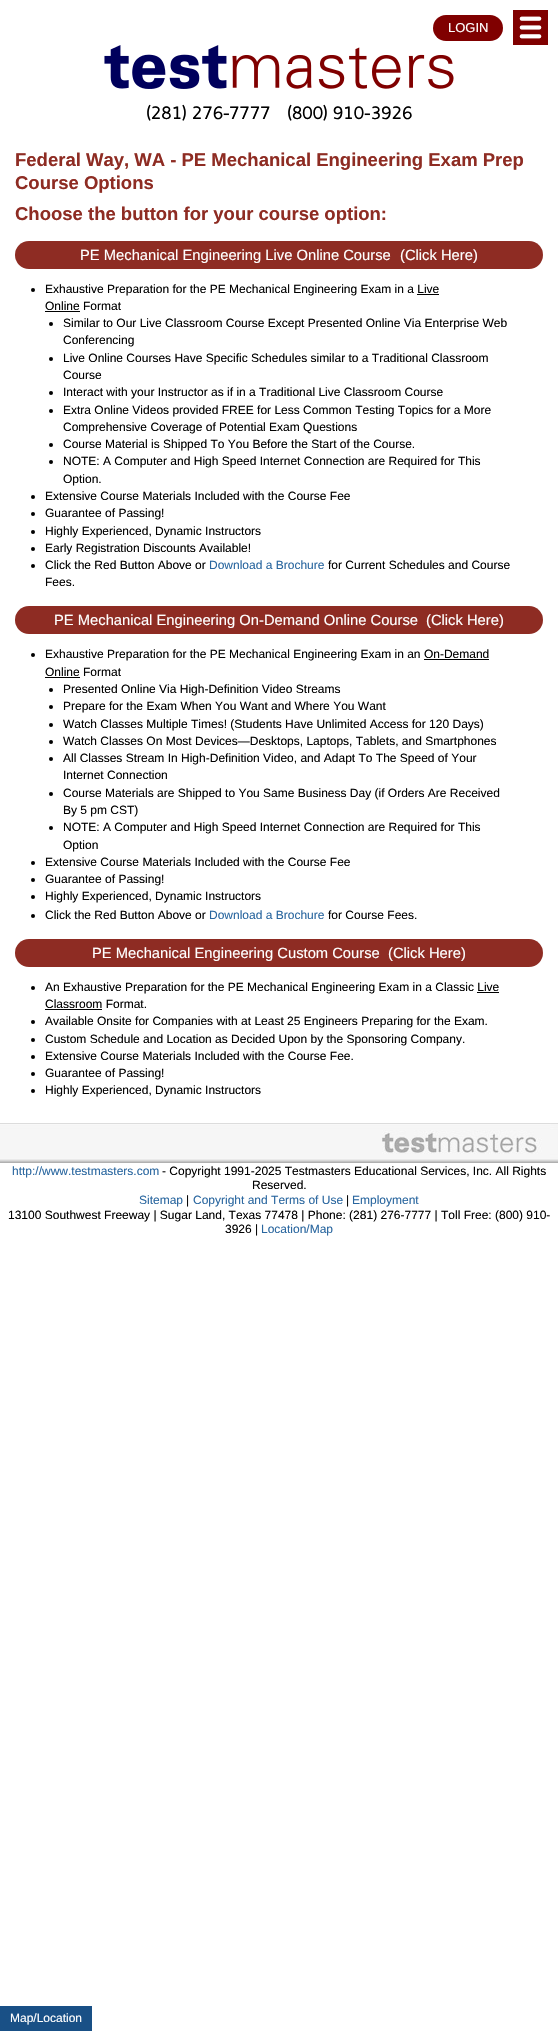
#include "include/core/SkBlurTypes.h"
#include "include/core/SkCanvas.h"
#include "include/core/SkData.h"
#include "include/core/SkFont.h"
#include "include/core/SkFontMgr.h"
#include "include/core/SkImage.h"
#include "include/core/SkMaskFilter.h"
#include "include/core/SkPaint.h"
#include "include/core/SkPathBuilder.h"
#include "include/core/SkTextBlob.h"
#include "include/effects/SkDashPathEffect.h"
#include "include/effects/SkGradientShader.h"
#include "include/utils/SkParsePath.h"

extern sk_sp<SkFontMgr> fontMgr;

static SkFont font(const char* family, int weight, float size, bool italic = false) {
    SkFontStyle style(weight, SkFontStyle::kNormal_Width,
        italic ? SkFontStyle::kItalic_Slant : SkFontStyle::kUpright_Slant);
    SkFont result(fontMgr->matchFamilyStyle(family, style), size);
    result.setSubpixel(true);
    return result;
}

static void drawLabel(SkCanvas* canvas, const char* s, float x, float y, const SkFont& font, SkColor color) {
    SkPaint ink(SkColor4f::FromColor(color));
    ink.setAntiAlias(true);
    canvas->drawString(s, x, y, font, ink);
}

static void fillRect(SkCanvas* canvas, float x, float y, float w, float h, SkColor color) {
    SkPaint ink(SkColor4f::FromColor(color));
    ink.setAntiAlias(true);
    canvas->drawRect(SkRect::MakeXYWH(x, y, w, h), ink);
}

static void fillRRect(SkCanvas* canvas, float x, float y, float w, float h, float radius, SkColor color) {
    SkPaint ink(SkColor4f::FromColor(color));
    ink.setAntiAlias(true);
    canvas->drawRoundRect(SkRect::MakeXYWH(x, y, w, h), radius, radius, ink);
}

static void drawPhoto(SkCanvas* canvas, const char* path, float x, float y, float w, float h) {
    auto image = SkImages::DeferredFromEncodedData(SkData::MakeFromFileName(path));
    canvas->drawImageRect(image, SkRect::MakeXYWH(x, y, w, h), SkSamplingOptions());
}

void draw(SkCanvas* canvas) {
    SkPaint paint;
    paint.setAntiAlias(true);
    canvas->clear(0xFFFFFFFF);
    fillRRect(canvas, 433, 15, 70, 26, 13, 0xFF800000);
    SkFont font1 = font("Liberation Sans", 400, 13);
    drawLabel(canvas, "LOGIN", 448, 32, font1, 0xFFFFFFFF);
    drawPhoto(canvas, "assets/img1.png", 513, 10, 35, 35);
    drawPhoto(canvas, "assets/img2.png", 104, 45, 350, 44);
    SkFont font2 = font("Imprima", 400, 20);
    drawLabel(canvas, "(281) 276", 146, 119, font2, 0xFF000000);
    SkFont font3 = font("Liberation Serif", 400, 20);
    drawLabel(canvas, "-", 223, 119, font3, 0xFF000000);
    drawLabel(canvas, "7777", 229, 119, font2, 0xFF000000);
    drawLabel(canvas, "(800) 910", 287, 119, font2, 0xFF000000);
    drawLabel(canvas, "-", 364, 119, font3, 0xFF000000);
    drawLabel(canvas, "3926", 371, 119, font2, 0xFF000000);
    fillRect(canvas, 0, 2006, 92, 25, 0xFF195086);
    SkFont font4 = font("Liberation Sans", 400, 12);
    drawLabel(canvas, "Map/Location", 10, 2022, font4, 0xFFFFFFFF);
    SkFont font5 = font("Liberation Sans", 700, 18.5f);
    drawLabel(canvas, "Federal Way, WA - PE Mechanical Engineering Exam Prep", 15, 166, font5, 0xFF8E2C23);
    drawLabel(canvas, "Course Options", 15, 189, font5, 0xFF8E2C23);
    drawLabel(canvas, "Choose the button for your course option:", 15, 220, font5, 0xFF8E2C23);
    fillRRect(canvas, 15, 241, 528, 28, 14, 0xFF8E2C23);
    SkFont font6 = font("Liberation Sans", 400, 14.75f);
    drawLabel(canvas, "PE Mechanical Engineering Live Online Course", 80, 260, font6, 0xFFFFFFFF);
    drawLabel(canvas, "(Click Here)", 400, 260, font6, 0xFFFFFFFF);
    paint.setColor(0xFF000000);
    canvas->drawCircle(33, 290, 2, paint);
    drawLabel(canvas, "Exhaustive Preparation for the PE Mechanical Engineering Exam in a Live", 45, 293, font4, 0xFF000000);
    drawLabel(canvas, "Online Format", 45, 310, font4, 0xFF000000);
    fillRect(canvas, 417, 294, 22, 1, 0xFF000000);
    fillRect(canvas, 45, 311, 35, 1, 0xFF000000);
    canvas->drawCircle(51, 324, 2, paint);
    drawLabel(canvas, "Similar to Our Live Classroom Course Except Presented Online Via Enterprise Web", 63, 327, font4, 0xFF000000);
    drawLabel(canvas, "Conferencing", 63, 344, font4, 0xFF000000);
    canvas->drawCircle(51, 359, 2, paint);
    drawLabel(canvas, "Live Online Courses Have Specific Schedules similar to a Traditional Classroom", 63, 362, font4, 0xFF000000);
    drawLabel(canvas, "Course", 63, 379, font4, 0xFF000000);
    canvas->drawCircle(51, 393, 2, paint);
    drawLabel(canvas, "Interact with your Instructor as if in a Traditional Live Classroom Course", 63, 396, font4, 0xFF000000);
    canvas->drawCircle(51, 411, 2, paint);
    drawLabel(canvas, "Extra Online Videos provided FREE for Less Common Testing Topics for a More", 63, 414, font4, 0xFF000000);
    drawLabel(canvas, "Comprehensive Coverage of Potential Exam Questions", 63, 431, font4, 0xFF000000);
    canvas->drawCircle(51, 445, 2, paint);
    drawLabel(canvas, "Course Material is Shipped To You Before the Start of the Course.", 63, 448, font4, 0xFF000000);
    canvas->drawCircle(51, 462, 2, paint);
    drawLabel(canvas, "NOTE: A Computer and High Speed Internet Connection are Required for This", 63, 465, font4, 0xFF000000);
    drawLabel(canvas, "Option.", 63, 483, font4, 0xFF000000);
    canvas->drawCircle(33, 497, 2, paint);
    drawLabel(canvas, "Extensive Course Materials Included with the Course Fee", 45, 500, font4, 0xFF000000);
    canvas->drawCircle(33, 514, 2, paint);
    drawLabel(canvas, "Guarantee of Passing!", 45, 517, font4, 0xFF000000);
    canvas->drawCircle(33, 532, 2, paint);
    drawLabel(canvas, "Highly Experienced, Dynamic Instructors", 45, 535, font4, 0xFF000000);
    canvas->drawCircle(33, 549, 2, paint);
    drawLabel(canvas, "Early Registration Discounts Available!", 45, 552, font4, 0xFF000000);
    canvas->drawCircle(33, 566, 2, paint);
    drawLabel(canvas, "Click the Red Button Above or", 45, 569, font4, 0xFF000000);
    drawLabel(canvas, "Download a Brochure", 209, 569, font4, 0xFF29669F);
    drawLabel(canvas, "for Current Schedules and Course", 328, 569, font4, 0xFF000000);
    drawLabel(canvas, "Fees.", 45, 586, font4, 0xFF000000);
    fillRRect(canvas, 15, 606, 528, 28, 14, 0xFF8E2C23);
    drawLabel(canvas, "PE Mechanical Engineering On-Demand Online Course", 54, 625, font6, 0xFFFFFFFF);
    drawLabel(canvas, "(Click Here)", 426, 625, font6, 0xFFFFFFFF);
    canvas->drawCircle(33, 655, 2, paint);
    drawLabel(canvas, "Exhaustive Preparation for the PE Mechanical Engineering Exam in an On-Demand", 45, 658, font4, 0xFF000000);
    drawLabel(canvas, "Online Format", 45, 676, font4, 0xFF000000);
    fillRect(canvas, 424, 659, 65, 1, 0xFF000000);
    fillRect(canvas, 45, 677, 35, 1, 0xFF000000);
    canvas->drawCircle(51, 690, 2, paint);
    drawLabel(canvas, "Presented Online Via High-Definition Video Streams", 63, 693, font4, 0xFF000000);
    canvas->drawCircle(51, 707, 2, paint);
    drawLabel(canvas, "Prepare for the Exam When You Want and Where You Want", 63, 710, font4, 0xFF000000);
    canvas->drawCircle(51, 725, 2, paint);
    drawLabel(canvas, "Watch Classes Multiple Times! (Students Have Unlimited Access for 120 Days)", 63, 728, font4, 0xFF000000);
    canvas->drawCircle(51, 742, 2, paint);
    drawLabel(canvas, "Watch Classes On Most Devices—Desktops, Laptops, Tablets, and Smartphones", 63, 745, font4, 0xFF000000);
    canvas->drawCircle(51, 759, 2, paint);
    drawLabel(canvas, "All Classes Stream In High-Definition Video, and Adapt To The Speed of Your", 63, 762, font4, 0xFF000000);
    drawLabel(canvas, "Internet Connection", 63, 779, font4, 0xFF000000);
    canvas->drawCircle(51, 794, 2, paint);
    drawLabel(canvas, "Course Materials are Shipped to You Same Business Day (if Orders Are Received", 63, 797, font4, 0xFF000000);
    drawLabel(canvas, "By 5 pm CST)", 63, 814, font4, 0xFF000000);
    canvas->drawCircle(51, 828, 2, paint);
    drawLabel(canvas, "NOTE: A Computer and High Speed Internet Connection are Required for This", 63, 831, font4, 0xFF000000);
    drawLabel(canvas, "Option", 63, 849, font4, 0xFF000000);
    canvas->drawCircle(33, 863, 2, paint);
    drawLabel(canvas, "Extensive Course Materials Included with the Course Fee", 45, 866, font4, 0xFF000000);
    canvas->drawCircle(33, 880, 2, paint);
    drawLabel(canvas, "Guarantee of Passing!", 45, 883, font4, 0xFF000000);
    canvas->drawCircle(33, 897, 2, paint);
    drawLabel(canvas, "Highly Experienced, Dynamic Instructors", 45, 900, font4, 0xFF000000);
    canvas->drawCircle(33, 916, 2, paint);
    drawLabel(canvas, "Click the Red Button Above or", 45, 919, font4, 0xFF000000);
    drawLabel(canvas, "Download a Brochure", 209, 919, font4, 0xFF29669F);
    drawLabel(canvas, "for Course Fees.", 328, 919, font4, 0xFF000000);
    fillRRect(canvas, 15, 939, 528, 28, 14, 0xFF8E2C23);
    drawLabel(canvas, "PE Mechanical Engineering Custom Course", 92, 958, font6, 0xFFFFFFFF);
    drawLabel(canvas, "(Click Here)", 388, 958, font6, 0xFFFFFFFF);
    canvas->drawCircle(33, 988, 2, paint);
    drawLabel(canvas, "An Exhaustive Preparation for the PE Mechanical Engineering Exam in a Classic Live", 45, 991, font4, 0xFF000000);
    drawLabel(canvas, "Classroom Format.", 45, 1008, font4, 0xFF000000);
    fillRect(canvas, 477, 992, 22, 1, 0xFF000000);
    fillRect(canvas, 45, 1009, 57, 1, 0xFF000000);
    canvas->drawCircle(33, 1022, 2, paint);
    drawLabel(canvas, "Available Onsite for Companies with at Least 25 Engineers Preparing for the Exam.", 45, 1025, font4, 0xFF000000);
    canvas->drawCircle(33, 1040, 2, paint);
    drawLabel(canvas, "Custom Schedule and Location as Decided Upon by the Sponsoring Company.", 45, 1043, font4, 0xFF000000);
    canvas->drawCircle(33, 1057, 2, paint);
    drawLabel(canvas, "Extensive Course Materials Included with the Course Fee.", 45, 1060, font4, 0xFF000000);
    canvas->drawCircle(33, 1074, 2, paint);
    drawLabel(canvas, "Guarantee of Passing!", 45, 1077, font4, 0xFF000000);
    canvas->drawCircle(33, 1091, 2, paint);
    drawLabel(canvas, "Highly Experienced, Dynamic Instructors", 45, 1094, font4, 0xFF000000);
    drawPhoto(canvas, "assets/img3.png", 0, 1123, 558, 40);
    drawLabel(canvas, "http://www.testmasters.com", 12, 1175, font4, 0xFF29669F);
    drawLabel(canvas, "- Copyright 1991-2025 Testmasters Educational Services, Inc. All Rights", 162, 1175, font4, 0xFF000000);
    drawLabel(canvas, "Reserved.", 252, 1189, font4, 0xFF000000);
    drawLabel(canvas, "Sitemap", 139, 1204, font4, 0xFF29669F);
    drawLabel(canvas, "|", 186, 1204, font4, 0xFF000000);
    drawLabel(canvas, "Copyright and Terms of Use", 193, 1204, font4, 0xFF29669F);
    drawLabel(canvas, "|", 346, 1204, font4, 0xFF000000);
    drawLabel(canvas, "Employment", 352, 1204, font4, 0xFF29669F);
    drawLabel(canvas, "13100 Southwest Freeway | Sugar Land, Texas 77478 | Phone: (281) 276-7777 | Toll Free: (800) 910-", 8, 1219, font4, 0xFF000000);
    drawLabel(canvas, "3926 |", 225, 1233, font4, 0xFF000000);
    drawLabel(canvas, "Location/Map", 261, 1233, font4, 0xFF29669F);
}
